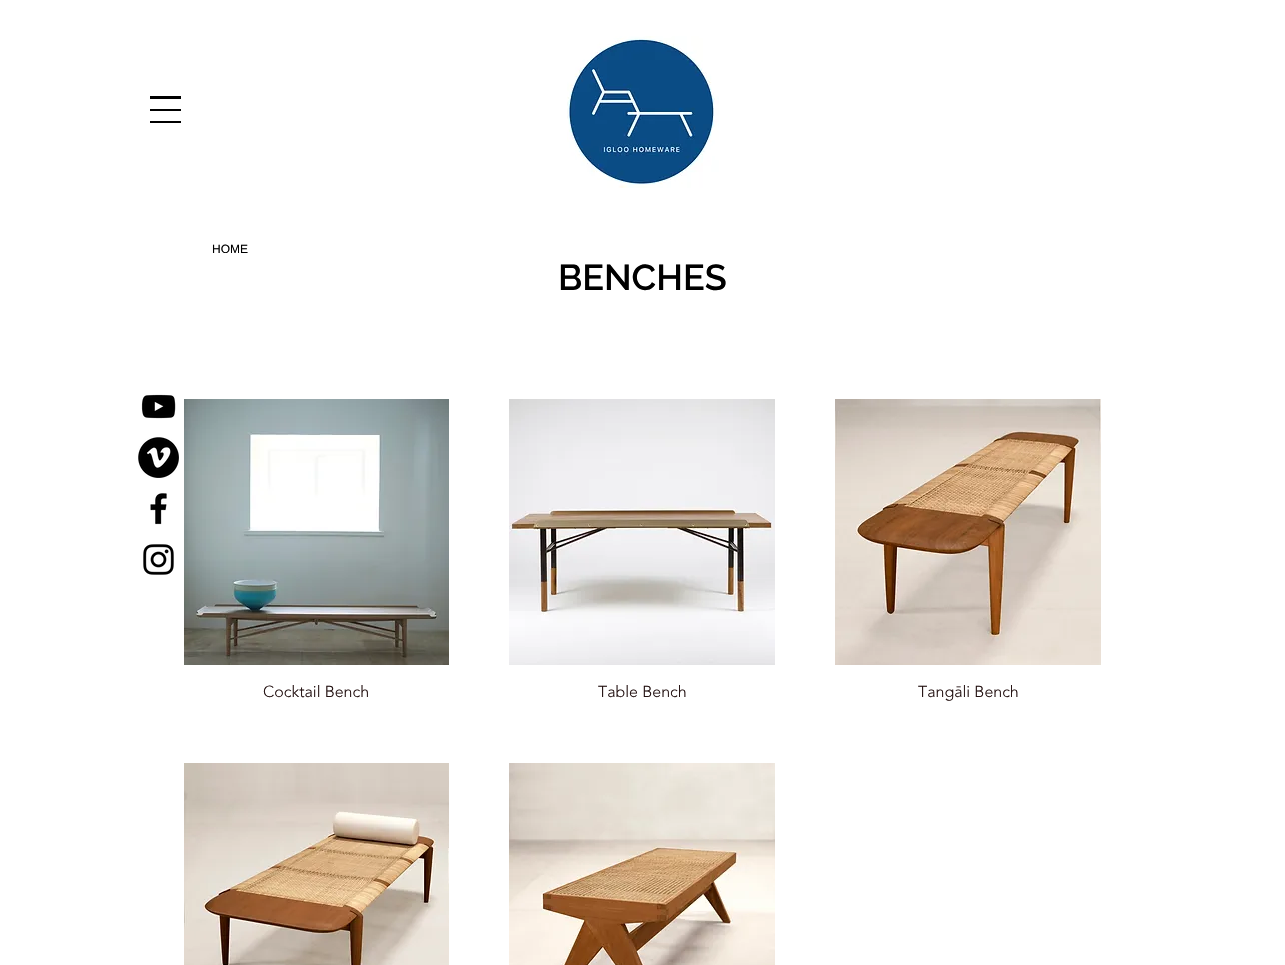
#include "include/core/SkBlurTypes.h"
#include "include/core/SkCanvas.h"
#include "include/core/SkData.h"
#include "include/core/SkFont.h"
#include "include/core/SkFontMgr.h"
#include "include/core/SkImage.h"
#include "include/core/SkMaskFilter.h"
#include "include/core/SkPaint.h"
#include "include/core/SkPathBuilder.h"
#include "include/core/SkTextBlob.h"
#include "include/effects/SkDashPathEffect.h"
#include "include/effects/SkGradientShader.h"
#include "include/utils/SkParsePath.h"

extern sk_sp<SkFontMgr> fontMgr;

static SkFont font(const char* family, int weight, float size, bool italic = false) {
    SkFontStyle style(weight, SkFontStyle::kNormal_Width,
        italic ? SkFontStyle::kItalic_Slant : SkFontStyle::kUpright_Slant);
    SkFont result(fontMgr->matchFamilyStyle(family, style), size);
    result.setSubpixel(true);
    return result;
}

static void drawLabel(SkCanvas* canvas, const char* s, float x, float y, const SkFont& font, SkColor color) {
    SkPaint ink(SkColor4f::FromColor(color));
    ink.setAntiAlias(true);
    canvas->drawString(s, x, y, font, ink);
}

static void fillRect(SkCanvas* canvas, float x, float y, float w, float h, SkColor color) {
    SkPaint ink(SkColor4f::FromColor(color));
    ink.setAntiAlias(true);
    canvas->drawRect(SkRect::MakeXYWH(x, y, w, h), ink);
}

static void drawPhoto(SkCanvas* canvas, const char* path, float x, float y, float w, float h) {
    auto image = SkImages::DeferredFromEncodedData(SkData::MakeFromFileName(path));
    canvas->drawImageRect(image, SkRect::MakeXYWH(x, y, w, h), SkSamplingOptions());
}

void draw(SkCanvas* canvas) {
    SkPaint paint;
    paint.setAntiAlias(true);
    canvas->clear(0xFFFFFFFF);
    fillRect(canvas, 150, 96, 31, 3, 0xFF000000);
    fillRect(canvas, 150, 109, 31, 2, 0xFF000000);
    fillRect(canvas, 150, 121, 31, 2, 0xFF000000);
    drawPhoto(canvas, "assets/img1.png", 567, 36, 152, 152);
    drawPhoto(canvas, "assets/img2.png", 141, 394, 35, 25);
    drawPhoto(canvas, "assets/img3.png", 138, 437, 41, 41);
    drawPhoto(canvas, "assets/img4.png", 150, 493, 17, 32);
    drawPhoto(canvas, "assets/img5.png", 143, 544, 31, 31);
    SkFont font1 = font("Liberation Sans", 400, 12);
    drawLabel(canvas, "HOME", 212, 253, font1, 0xFF000000);
    SkFont font2 = font("Raleway", 600, 36);
    drawLabel(canvas, "BENCHES", 558, 290, font2, 0xFF000000);
    drawPhoto(canvas, "assets/img6.png", 184, 399, 265, 266);
    SkFont font3 = font("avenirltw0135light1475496", 300, 16);
    drawLabel(canvas, "Cocktail Bench", 263, 697, font3, 0xFF231111);
    drawPhoto(canvas, "assets/img7.png", 509, 399, 266, 266);
    drawLabel(canvas, "Table Bench", 598, 697, font3, 0xFF231111);
    drawPhoto(canvas, "assets/img8.png", 835, 399, 266, 266);
    drawLabel(canvas, "Tangāli Bench", 918, 697, font3, 0xFF231111);
    drawPhoto(canvas, "assets/img9.png", 184, 763, 265, 202);
    drawPhoto(canvas, "assets/img10.png", 509, 763, 266, 202);
}
